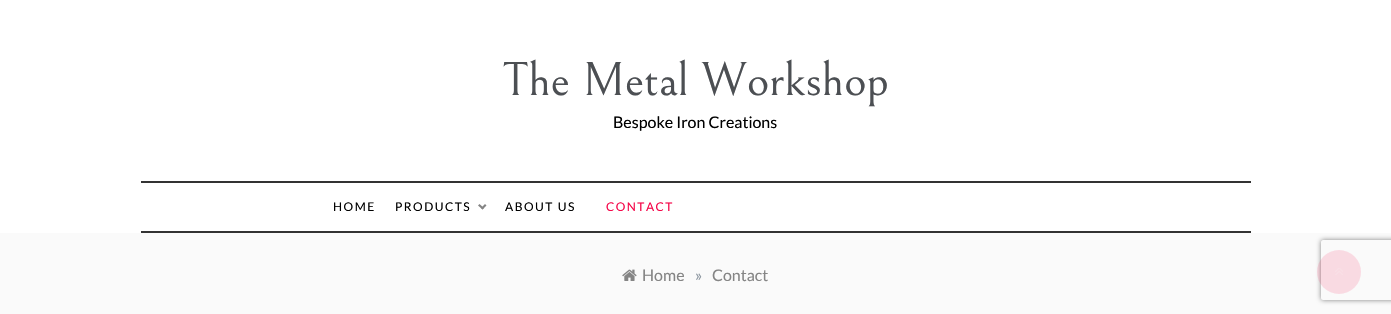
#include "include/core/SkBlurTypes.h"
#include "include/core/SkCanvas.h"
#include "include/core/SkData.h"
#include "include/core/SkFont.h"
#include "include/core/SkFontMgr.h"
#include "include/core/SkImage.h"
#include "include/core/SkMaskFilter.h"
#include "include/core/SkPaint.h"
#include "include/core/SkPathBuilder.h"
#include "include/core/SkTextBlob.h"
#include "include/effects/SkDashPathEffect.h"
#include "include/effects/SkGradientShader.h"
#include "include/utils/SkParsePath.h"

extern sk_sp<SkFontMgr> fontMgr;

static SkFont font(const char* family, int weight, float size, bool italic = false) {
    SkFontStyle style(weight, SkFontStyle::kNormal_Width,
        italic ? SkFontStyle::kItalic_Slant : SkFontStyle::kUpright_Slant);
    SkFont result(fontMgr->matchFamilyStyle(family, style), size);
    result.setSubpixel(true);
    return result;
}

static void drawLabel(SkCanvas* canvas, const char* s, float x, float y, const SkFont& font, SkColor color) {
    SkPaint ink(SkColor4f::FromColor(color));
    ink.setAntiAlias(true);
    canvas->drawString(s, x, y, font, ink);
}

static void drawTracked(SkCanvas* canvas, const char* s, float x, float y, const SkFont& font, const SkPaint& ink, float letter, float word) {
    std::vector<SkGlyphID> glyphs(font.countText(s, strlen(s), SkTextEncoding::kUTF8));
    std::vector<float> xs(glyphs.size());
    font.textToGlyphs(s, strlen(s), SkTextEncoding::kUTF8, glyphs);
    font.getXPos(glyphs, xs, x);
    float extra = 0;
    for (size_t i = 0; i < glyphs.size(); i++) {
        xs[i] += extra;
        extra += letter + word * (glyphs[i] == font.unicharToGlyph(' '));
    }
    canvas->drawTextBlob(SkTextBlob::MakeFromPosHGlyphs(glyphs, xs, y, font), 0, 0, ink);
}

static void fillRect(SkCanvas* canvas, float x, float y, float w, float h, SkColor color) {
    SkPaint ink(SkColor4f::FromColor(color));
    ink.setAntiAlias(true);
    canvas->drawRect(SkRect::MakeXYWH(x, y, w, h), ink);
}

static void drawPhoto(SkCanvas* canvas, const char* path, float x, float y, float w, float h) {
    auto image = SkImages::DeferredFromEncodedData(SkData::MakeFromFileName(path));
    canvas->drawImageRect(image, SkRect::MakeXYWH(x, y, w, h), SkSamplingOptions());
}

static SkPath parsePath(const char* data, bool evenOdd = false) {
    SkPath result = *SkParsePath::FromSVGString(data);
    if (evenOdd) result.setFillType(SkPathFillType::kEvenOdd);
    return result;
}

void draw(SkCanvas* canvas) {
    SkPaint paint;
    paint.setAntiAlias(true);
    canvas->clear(0xFFFAFAFA);
    canvas->save();
    canvas->clipPath(parsePath("M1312 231H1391V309H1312ZM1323 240H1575C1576 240 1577 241 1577 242V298C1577 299 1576 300 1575 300H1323C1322 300 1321 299 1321 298V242C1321 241 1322 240 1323 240Z", true), true);
    paint.setColor(0xFF808080);
    paint.setMaskFilter(SkMaskFilter::MakeBlur(kNormal_SkBlurStyle, 2.5f));
    canvas->drawRoundRect(SkRect::MakeXYWH(1321, 240, 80, 60), 2, 2, paint);
    paint.setMaskFilter(nullptr);
    canvas->restore();
    fillRect(canvas, 0, 0, 1391, 233, 0xFFFFFFFF);
    SkFont font1 = font("Bellefair", 400, 48);
    drawLabel(canvas, "The Metal Workshop", 502, 95, font1, 0xFF4C4F53);
    SkFont font2 = font("Lato", 400, 16);
    drawLabel(canvas, "Bespoke Iron Creations", 613, 128, font2, 0xFF000000);
    fillRect(canvas, 141, 181, 1110, 2, 0xFF333333);
    fillRect(canvas, 141, 231, 1110, 2, 0xFF333333);
    SkFont font3 = font("Lato", 400, 12);
    paint.setColor(0xFF000000);
    drawTracked(canvas, "HOME", 333, 211, font3, paint, 1.5f, 0);
    drawTracked(canvas, "PRODUCTS", 395, 211, font3, paint, 1.5f, 0);
    paint.setColor(0xFF848484);
    canvas->drawPath(parsePath("M486.5 205.5L482.5 209.5L481 208L485 204Z"), paint);
    canvas->drawPath(parsePath("M484 208L482.5 209.5L478 205.5L479.5 204Z"), paint);
    paint.setColor(0xFF000000);
    drawTracked(canvas, "ABOUT US", 505, 211, font3, paint, 1.5f, 0);
    paint.setColor(0xFFF50649);
    drawTracked(canvas, "CONTACT", 606, 211, font3, paint, 1.5f, 0);
    drawPhoto(canvas, "assets/img1.png", 622, 269, 15, 12);
    drawLabel(canvas, "Home", 642, 281, font2, 0xFF858585);
    drawLabel(canvas, "»", 695, 281, font2, 0xFF8D97A1);
    drawLabel(canvas, "Contact", 712, 281, font2, 0xFF858585);
    paint.setColor(0x21F50649);
    canvas->drawCircle(1339, 272, 22, paint);
    drawPhoto(canvas, "assets/img2.png", 1335, 268, 8, 7);
}
